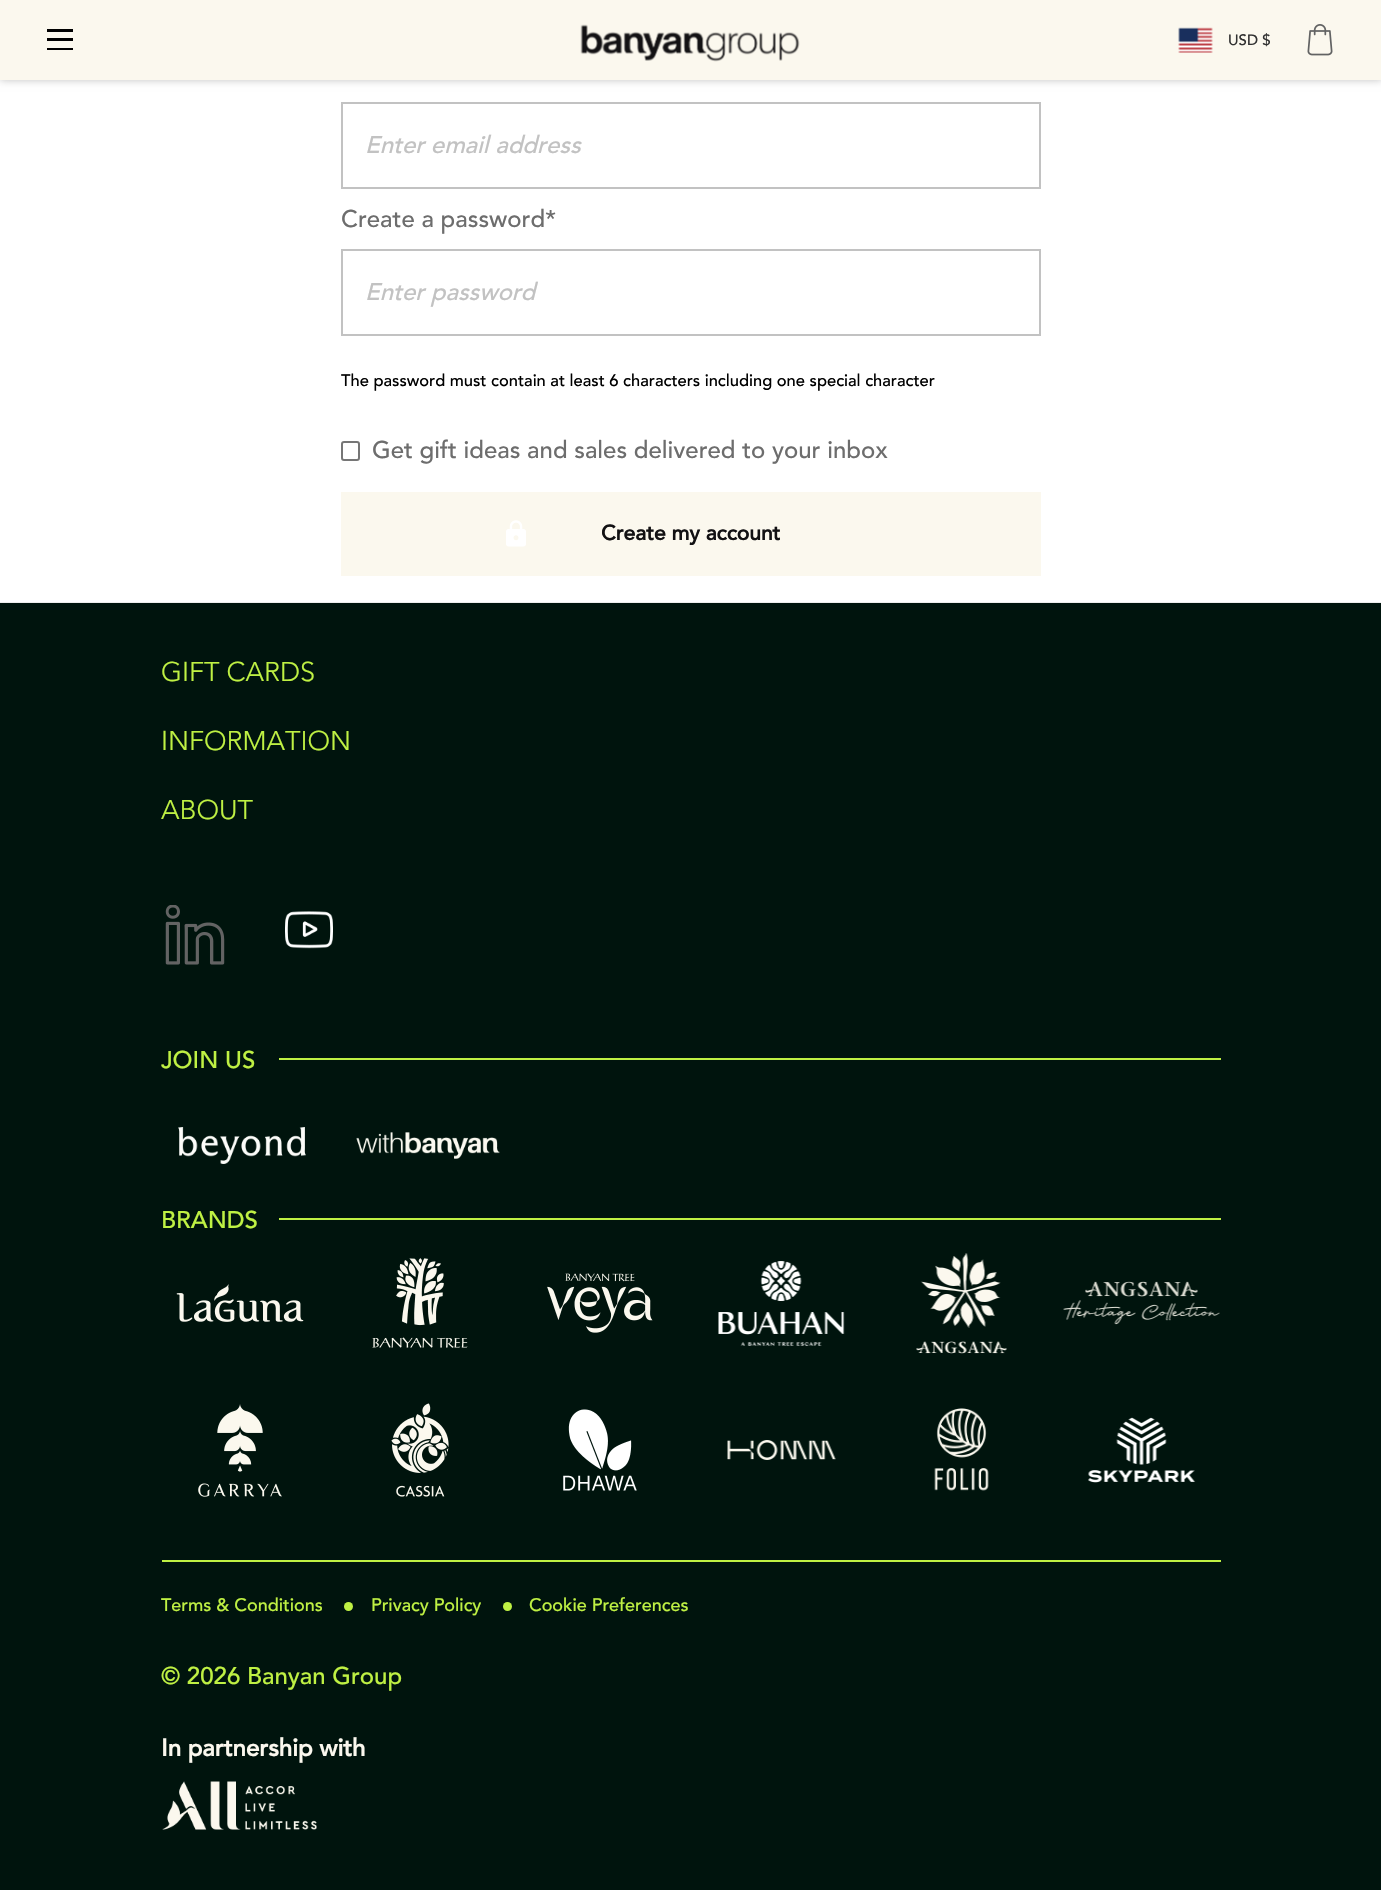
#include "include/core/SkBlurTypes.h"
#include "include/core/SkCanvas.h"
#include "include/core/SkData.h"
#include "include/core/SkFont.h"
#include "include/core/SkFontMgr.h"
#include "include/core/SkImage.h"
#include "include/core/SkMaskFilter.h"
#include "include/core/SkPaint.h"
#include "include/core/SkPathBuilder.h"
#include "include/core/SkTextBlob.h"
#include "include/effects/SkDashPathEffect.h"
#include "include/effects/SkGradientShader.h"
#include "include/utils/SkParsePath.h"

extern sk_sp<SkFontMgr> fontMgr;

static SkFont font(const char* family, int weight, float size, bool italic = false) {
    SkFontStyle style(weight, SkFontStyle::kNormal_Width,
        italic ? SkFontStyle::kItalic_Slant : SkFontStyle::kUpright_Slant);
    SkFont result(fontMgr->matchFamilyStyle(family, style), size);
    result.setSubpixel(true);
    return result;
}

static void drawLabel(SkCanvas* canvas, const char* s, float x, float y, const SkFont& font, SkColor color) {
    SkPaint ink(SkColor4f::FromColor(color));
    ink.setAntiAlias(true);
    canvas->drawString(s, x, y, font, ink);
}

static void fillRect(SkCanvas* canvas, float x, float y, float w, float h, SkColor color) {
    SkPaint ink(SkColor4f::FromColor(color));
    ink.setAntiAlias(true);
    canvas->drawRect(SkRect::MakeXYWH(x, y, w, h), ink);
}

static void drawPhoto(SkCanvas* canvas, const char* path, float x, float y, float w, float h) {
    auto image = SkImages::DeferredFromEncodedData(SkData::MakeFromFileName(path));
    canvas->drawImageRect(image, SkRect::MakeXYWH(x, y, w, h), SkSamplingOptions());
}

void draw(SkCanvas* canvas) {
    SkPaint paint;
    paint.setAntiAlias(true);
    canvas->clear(0xFFFFFFFF);
    paint.setColor(0xFFC2C2C2);
    paint.setMaskFilter(SkMaskFilter::MakeBlur(kNormal_SkBlurStyle, 4));
    canvas->drawRect(SkRect::MakeXYWH(0, 0, 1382, 80), paint);
    paint.setMaskFilter(nullptr);
    fillRect(canvas, 0, 0, 1381, 80, 0xFFFBF8EE);
    fillRect(canvas, 47, 29, 26, 3, 0xFF000000);
    fillRect(canvas, 47, 38, 26, 3, 0xFF000000);
    fillRect(canvas, 47, 48, 26, 2, 0xFF000000);
    drawPhoto(canvas, "assets/img1.png", 580, 24, 220, 38);
    drawPhoto(canvas, "assets/img2.png", 1178, 27, 35, 26);
    SkFont font1 = font("Avenir", 500, 15);
    drawLabel(canvas, "USD $", 1228, 45, font1, 0xFF313131);
    drawPhoto(canvas, "assets/img3.png", 1307, 24, 26, 32);
    paint.setStroke(true);
    paint.setStrokeWidth(2);
    canvas->drawRect(SkRect::MakeXYWH(342, 103, 698, 85), paint);
    SkFont font2 = font("Avenir", 500, 24, true);
    drawLabel(canvas, "Enter email address", 365, 153, font2, 0xFFC2C2C2);
    SkFont font3 = font("Avenir", 500, 24);
    drawLabel(canvas, "Create a password*", 341, 227, font3, 0xFF6D6D6D);
    canvas->drawRect(SkRect::MakeXYWH(342, 250, 698, 85), paint);
    drawLabel(canvas, "Enter password", 365, 300, font2, 0xFFC2C2C2);
    SkFont font4 = font("Avenir", 500, 16.5f);
    drawLabel(canvas, "The password must contain at least 6 characters including one special character", 341, 386, font4, 0xFF000000);
    paint.setColor(0xFF767676);
    canvas->drawRoundRect(SkRect::MakeXYWH(342, 442, 17, 18), 2, 2, paint);
    drawLabel(canvas, "Get gift ideas and sales delivered to your inbox", 372, 458, font3, 0xFF6D6D6D);
    fillRect(canvas, 341, 492, 700, 84, 0xFFFBF8EE);
    drawPhoto(canvas, "assets/img4.png", 506, 520, 20, 27);
    SkFont font5 = font("Avenir", 700, 21);
    drawLabel(canvas, "Create my account", 601, 540, font5, 0xFF121113);
    fillRect(canvas, 0, 602, 1381, 1, 0xFFEDEDED);
    fillRect(canvas, 0, 603, 1381, 1287, 0xFF00140D);
    SkFont font6 = font("Avenir", 300, 27);
    drawLabel(canvas, "GIFT CARDS", 161, 681, font6, 0xFFBFF143);
    drawLabel(canvas, "INFORMATION", 161, 750, font6, 0xFFBFF143);
    drawLabel(canvas, "ABOUT", 161, 819, font6, 0xFFBFF143);
    drawPhoto(canvas, "assets/img5.png", 165, 905, 60, 60);
    drawPhoto(canvas, "assets/img6.png", 285, 911, 48, 38);
    drawLabel(canvas, "JOIN US", 161, 1068, font3, 0xFFBFF143);
    fillRect(canvas, 279, 1058, 942, 2, 0xFFBFF143);
    drawPhoto(canvas, "assets/img7.png", 178, 1127, 128, 37);
    drawPhoto(canvas, "assets/img8.png", 356, 1132, 144, 27);
    drawLabel(canvas, "BRANDS", 161, 1228, font3, 0xFFBFF143);
    fillRect(canvas, 279, 1218, 942, 2, 0xFFBFF143);
    drawPhoto(canvas, "assets/img9.png", 176, 1284, 128, 38);
    drawPhoto(canvas, "assets/img10.png", 372, 1258, 96, 90);
    drawPhoto(canvas, "assets/img11.png", 547, 1273, 106, 60);
    drawPhoto(canvas, "assets/img12.png", 718, 1261, 127, 85);
    drawPhoto(canvas, "assets/img13.png", 916, 1253, 91, 101);
    drawPhoto(canvas, "assets/img14.png", 1063, 1281, 157, 44);
    drawPhoto(canvas, "assets/img15.png", 198, 1404, 84, 93);
    drawPhoto(canvas, "assets/img16.png", 391, 1403, 58, 94);
    drawPhoto(canvas, "assets/img17.png", 563, 1409, 74, 82);
    drawPhoto(canvas, "assets/img18.png", 727, 1440, 109, 20);
    drawPhoto(canvas, "assets/img19.png", 934, 1408, 55, 83);
    drawPhoto(canvas, "assets/img20.png", 1088, 1417, 108, 66);
    fillRect(canvas, 162, 1560, 1059, 2, 0xFFBFF143);
    SkFont font7 = font("Avenir", 500, 18);
    drawLabel(canvas, "Terms & Conditions", 161, 1611, font7, 0xFFBFF143);
    paint.setStroke(false);
    paint.setColor(0xFFBFF143);
    canvas->drawCircle(348.5f, 1606.5f, 4.5f, paint);
    drawLabel(canvas, "Privacy Policy", 371, 1611, font7, 0xFFBFF143);
    canvas->drawCircle(507.5f, 1606.5f, 4.5f, paint);
    drawLabel(canvas, "Cookie Preferences", 529, 1611, font7, 0xFFBFF143);
    drawLabel(canvas, "© 2026 Banyan Group", 161, 1684, font3, 0xFFBFF143);
    SkFont font8 = font("Avenir", 700, 24);
    drawLabel(canvas, "In partnership with", 161, 1756, font8, 0xFFFBF8EE);
    drawPhoto(canvas, "assets/img21.png", 162, 1781, 155, 49);
}
